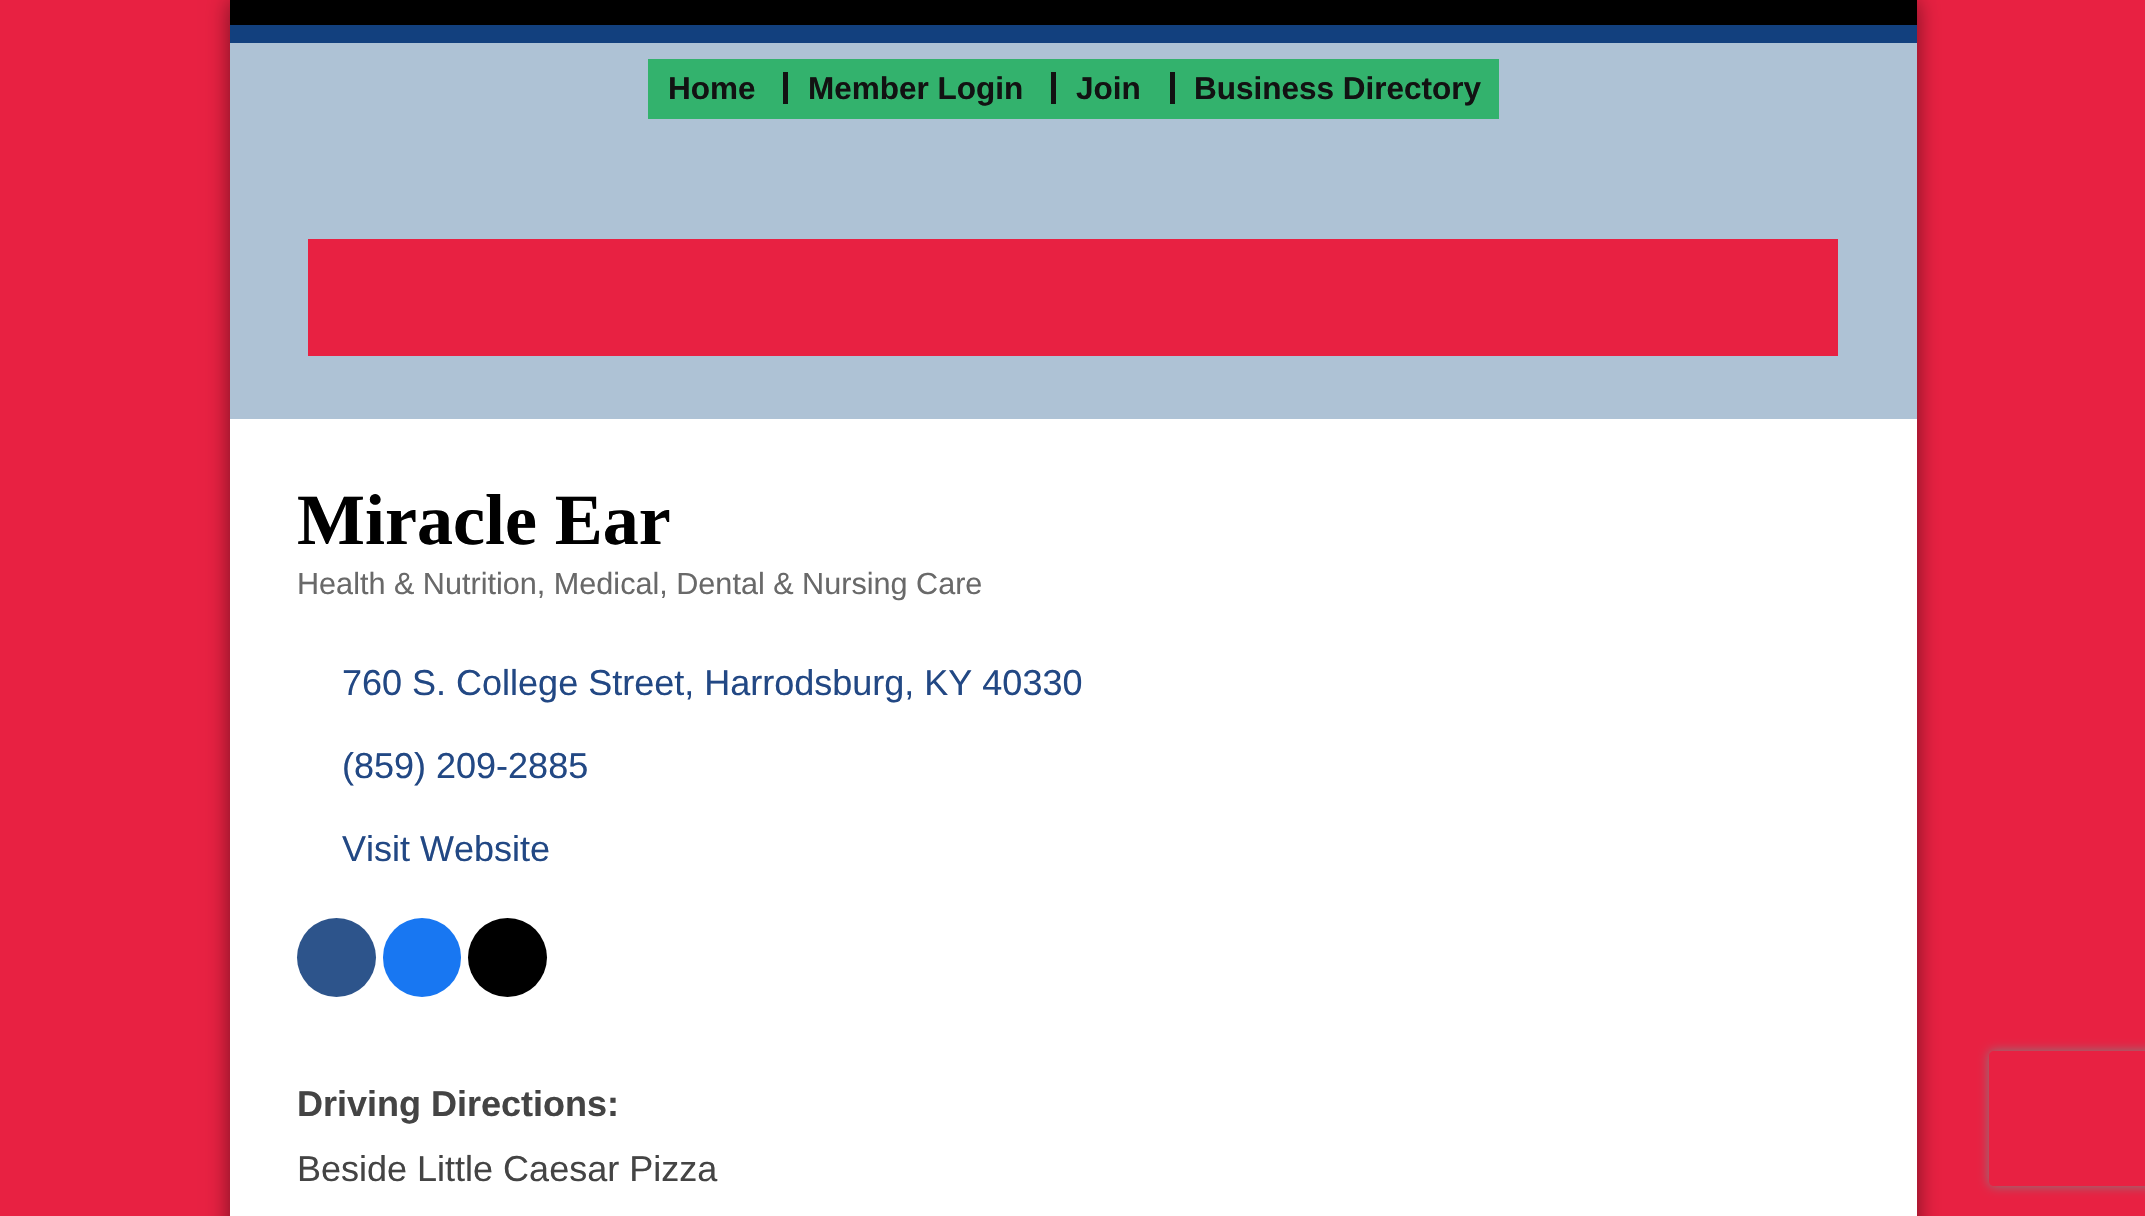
#include "include/core/SkBlurTypes.h"
#include "include/core/SkCanvas.h"
#include "include/core/SkData.h"
#include "include/core/SkFont.h"
#include "include/core/SkFontMgr.h"
#include "include/core/SkImage.h"
#include "include/core/SkMaskFilter.h"
#include "include/core/SkPaint.h"
#include "include/core/SkPathBuilder.h"
#include "include/core/SkTextBlob.h"
#include "include/effects/SkDashPathEffect.h"
#include "include/effects/SkGradientShader.h"
#include "include/utils/SkParsePath.h"

extern sk_sp<SkFontMgr> fontMgr;

static SkFont font(const char* family, int weight, float size, bool italic = false) {
    SkFontStyle style(weight, SkFontStyle::kNormal_Width,
        italic ? SkFontStyle::kItalic_Slant : SkFontStyle::kUpright_Slant);
    SkFont result(fontMgr->matchFamilyStyle(family, style), size);
    result.setSubpixel(true);
    return result;
}

static void drawLabel(SkCanvas* canvas, const char* s, float x, float y, const SkFont& font, SkColor color) {
    SkPaint ink(SkColor4f::FromColor(color));
    ink.setAntiAlias(true);
    canvas->drawString(s, x, y, font, ink);
}

static void fillRect(SkCanvas* canvas, float x, float y, float w, float h, SkColor color) {
    SkPaint ink(SkColor4f::FromColor(color));
    ink.setAntiAlias(true);
    canvas->drawRect(SkRect::MakeXYWH(x, y, w, h), ink);
}

static void fillRRect(SkCanvas* canvas, float x, float y, float w, float h, float radius, SkColor color) {
    SkPaint ink(SkColor4f::FromColor(color));
    ink.setAntiAlias(true);
    canvas->drawRoundRect(SkRect::MakeXYWH(x, y, w, h), radius, radius, ink);
}

static SkPath parsePath(const char* data, bool evenOdd = false) {
    SkPath result = *SkParsePath::FromSVGString(data);
    if (evenOdd) result.setFillType(SkPathFillType::kEvenOdd);
    return result;
}

void draw(SkCanvas* canvas) {
    SkPaint paint;
    paint.setAntiAlias(true);
    canvas->clear(0xFFE82142);
    paint.setColor(0x80000000);
    paint.setMaskFilter(SkMaskFilter::MakeBlur(kNormal_SkBlurStyle, 11));
    canvas->drawRect(SkRect::MakeXYWH(230, 0, 1687, 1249), paint);
    paint.setMaskFilter(nullptr);
    fillRect(canvas, 230, 419, 1687, 797, 0xFFFFFFFF);
    fillRect(canvas, 230, 0, 1687, 25, 0xFF000000);
    fillRect(canvas, 230, 25, 1687, 18, 0xFF12407E);
    fillRect(canvas, 230, 43, 1687, 376, 0xFFAEC2D5);
    fillRect(canvas, 648, 59, 851, 60, 0xFF33B26D);
    SkFont font1 = font("Liberation Sans", 700, 31.5f);
    drawLabel(canvas, "Home", 668, 99, font1, 0xFF121212);
    fillRect(canvas, 783, 72, 5, 32, 0xFF121212);
    drawLabel(canvas, "Member Login", 808, 99, font1, 0xFF121212);
    fillRect(canvas, 1051, 72, 5, 32, 0xFF121212);
    drawLabel(canvas, "Join", 1076, 99, font1, 0xFF121212);
    fillRect(canvas, 1170, 72, 5, 32, 0xFF121212);
    drawLabel(canvas, "Business Directory", 1194, 99, font1, 0xFF121212);
    fillRect(canvas, 308, 239, 1530, 117, 0xFFE82142);
    SkFont font2 = font("Liberation Serif", 700, 72);
    drawLabel(canvas, "Miracle Ear", 297, 544, font2, 0xFF000000);
    SkFont font3 = font("Liberation Sans", 400, 30.6f);
    drawLabel(canvas, "Health & Nutrition, Medical, Dental & Nursing Care", 297, 594, font3, 0xFF696969);
    SkFont font4 = font("Liberation Sans", 400, 36);
    drawLabel(canvas, "760 S. College Street, Harrodsburg, KY 40330", 342, 695, font4, 0xFF224884);
    drawLabel(canvas, "(859) 209-2885", 342, 778, font4, 0xFF224884);
    drawLabel(canvas, "Visit Website", 342, 861, font4, 0xFF224884);
    paint.setColor(0xFF2D548B);
    canvas->drawCircle(336.5f, 957.5f, 39.5f, paint);
    fillRRect(canvas, 383, 918, 78, 79, 39, 0xFF1877F2);
    paint.setColor(0xFF000000);
    canvas->drawCircle(507.5f, 957.5f, 39.5f, paint);
    SkFont font5 = font("Liberation Sans", 700, 36);
    drawLabel(canvas, "Driving Directions:", 297, 1116, font5, 0xFF444444);
    drawLabel(canvas, "Beside Little Caesar Pizza", 297, 1181, font4, 0xFF444444);
    canvas->save();
    canvas->clipPath(parsePath("M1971 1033H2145V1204H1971ZM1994 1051H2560C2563 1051 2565 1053 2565 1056V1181C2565 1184 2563 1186 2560 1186H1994C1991 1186 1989 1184 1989 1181V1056C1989 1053 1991 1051 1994 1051Z", true), true);
    paint.setColor(0xFF808080);
    paint.setMaskFilter(SkMaskFilter::MakeBlur(kNormal_SkBlurStyle, 5.5f));
    canvas->drawRoundRect(SkRect::MakeXYWH(1989, 1051, 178, 135), 5, 5, paint);
    paint.setMaskFilter(nullptr);
    canvas->restore();
}
